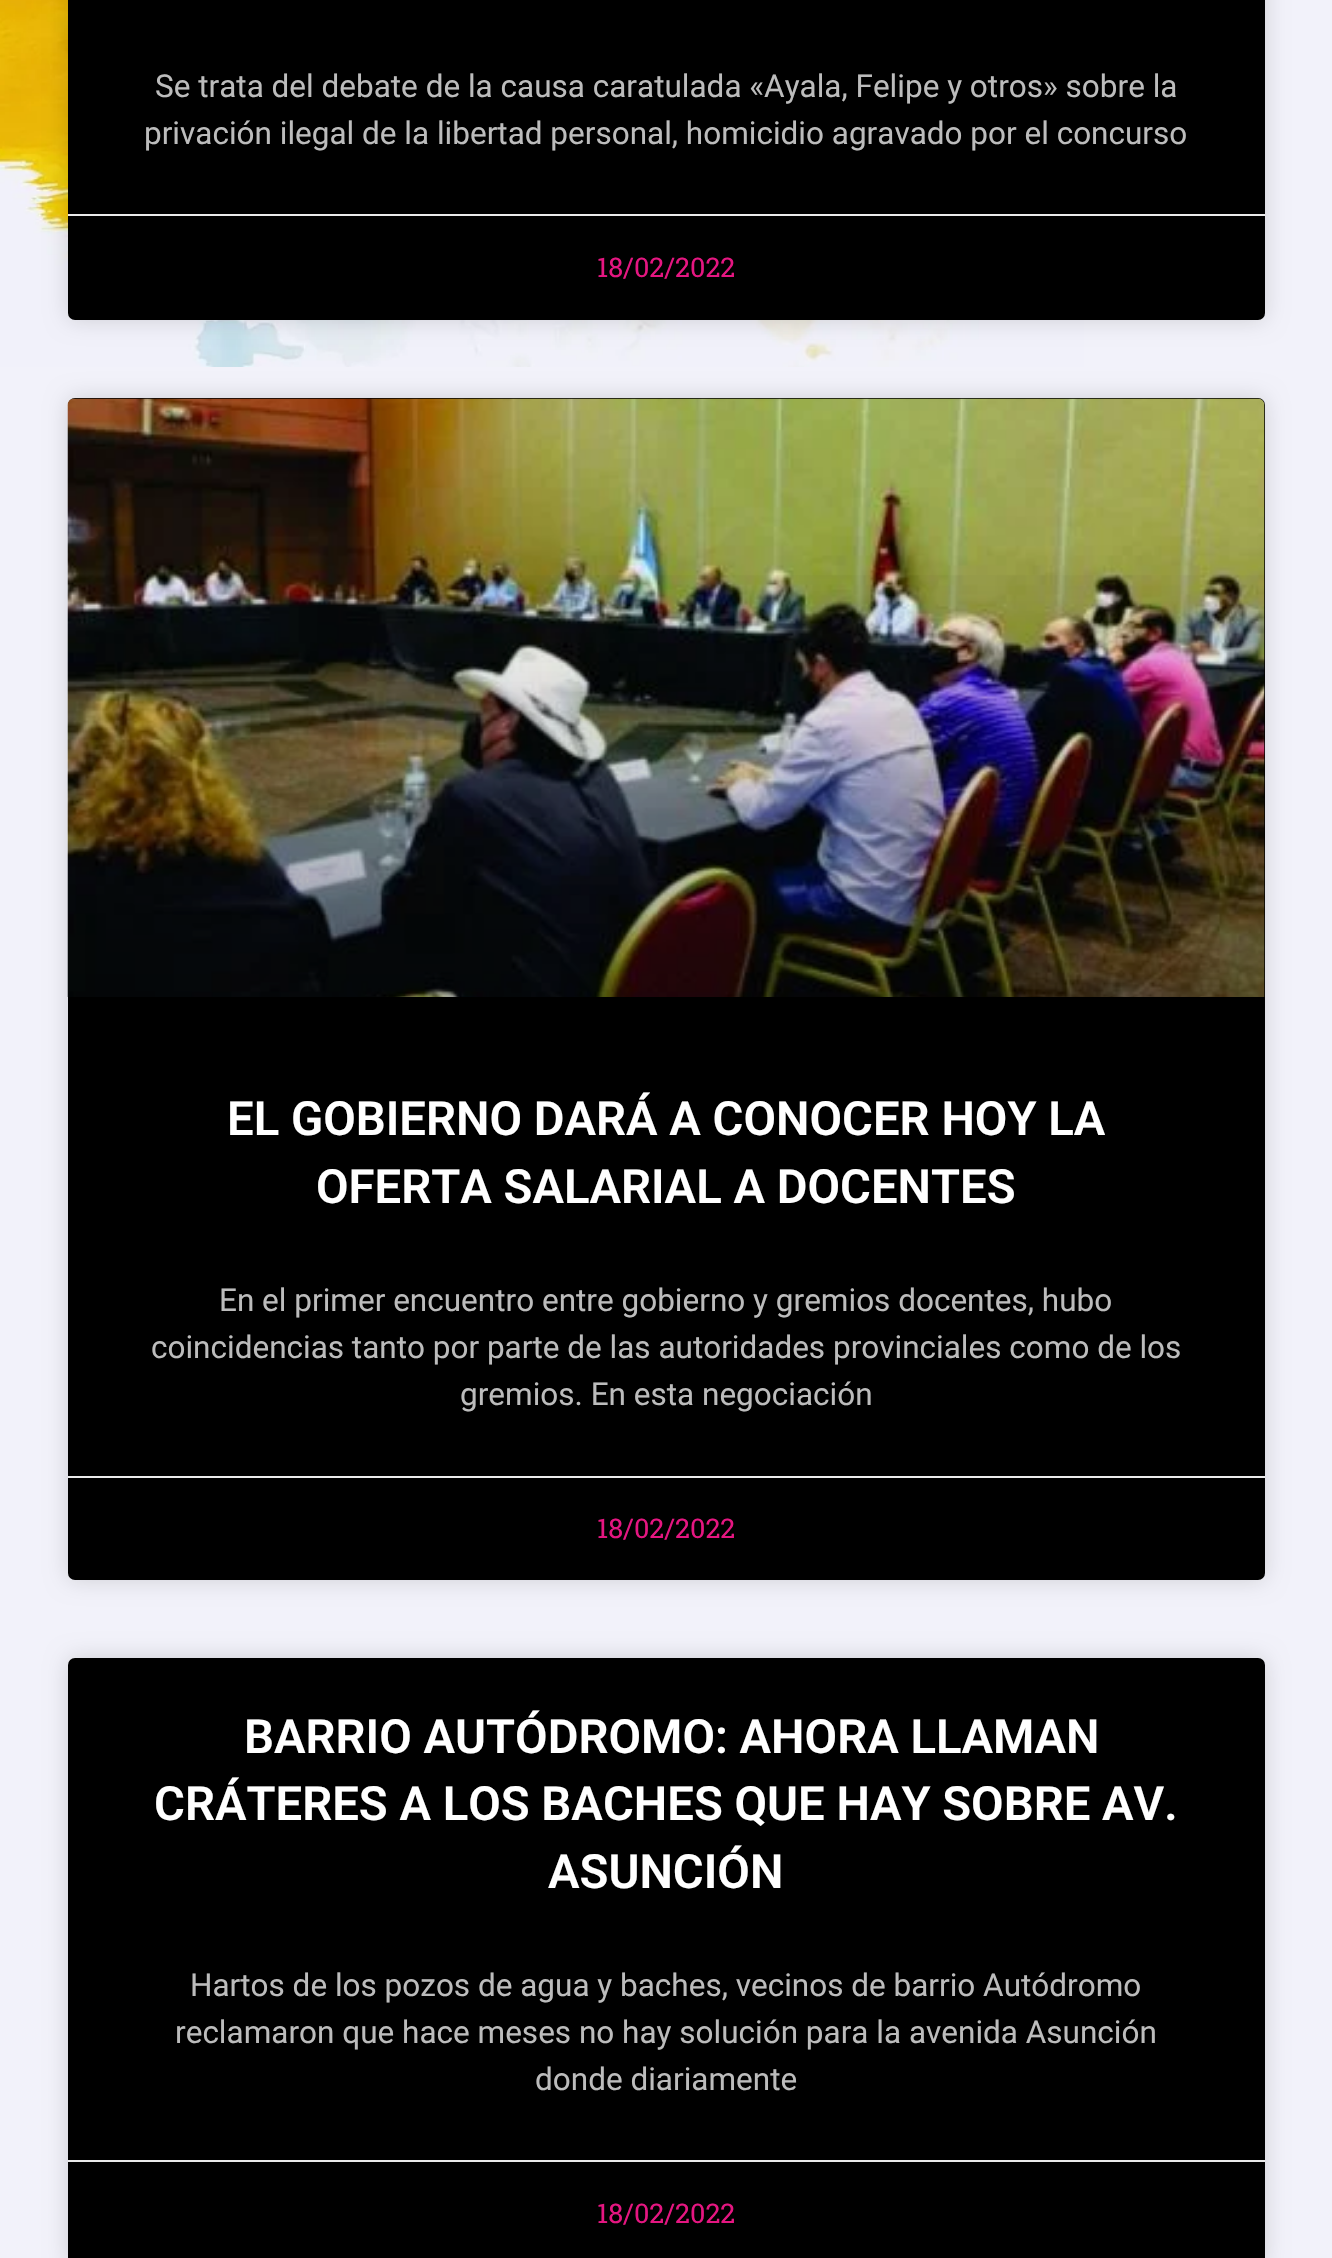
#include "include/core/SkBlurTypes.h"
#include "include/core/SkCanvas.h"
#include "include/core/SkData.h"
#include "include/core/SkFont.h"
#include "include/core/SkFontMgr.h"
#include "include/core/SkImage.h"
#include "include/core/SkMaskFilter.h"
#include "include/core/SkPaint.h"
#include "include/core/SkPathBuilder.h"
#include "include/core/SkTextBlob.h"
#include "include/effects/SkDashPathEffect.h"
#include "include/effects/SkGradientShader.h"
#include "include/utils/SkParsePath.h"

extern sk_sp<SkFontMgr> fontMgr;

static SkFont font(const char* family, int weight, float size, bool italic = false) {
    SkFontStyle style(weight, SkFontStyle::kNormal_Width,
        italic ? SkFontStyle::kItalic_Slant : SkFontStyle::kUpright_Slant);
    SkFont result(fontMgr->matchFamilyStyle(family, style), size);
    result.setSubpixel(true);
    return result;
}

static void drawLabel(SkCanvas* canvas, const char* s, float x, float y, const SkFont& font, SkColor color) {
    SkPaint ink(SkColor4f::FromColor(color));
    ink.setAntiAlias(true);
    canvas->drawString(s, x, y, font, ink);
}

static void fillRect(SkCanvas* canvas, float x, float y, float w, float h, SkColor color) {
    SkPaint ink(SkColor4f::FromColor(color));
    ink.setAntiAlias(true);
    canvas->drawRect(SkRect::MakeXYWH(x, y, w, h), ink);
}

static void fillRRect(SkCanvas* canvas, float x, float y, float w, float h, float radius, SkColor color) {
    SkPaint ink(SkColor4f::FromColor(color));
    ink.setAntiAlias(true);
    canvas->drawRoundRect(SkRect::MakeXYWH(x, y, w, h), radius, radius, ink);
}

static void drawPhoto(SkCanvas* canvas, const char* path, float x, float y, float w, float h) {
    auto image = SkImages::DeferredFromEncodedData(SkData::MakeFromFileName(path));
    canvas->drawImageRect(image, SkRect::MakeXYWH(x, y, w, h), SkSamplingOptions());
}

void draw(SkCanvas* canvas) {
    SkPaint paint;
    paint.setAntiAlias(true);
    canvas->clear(0xFFF2F2FA);
    drawPhoto(canvas, "assets/img1.png", 0, 0, 1085, 367);
    paint.setColor(0x26000000);
    paint.setMaskFilter(SkMaskFilter::MakeBlur(kNormal_SkBlurStyle, 11));
    canvas->drawRoundRect(SkRect::MakeXYWH(68, -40, 1197, 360), 7, 7, paint);
    paint.setMaskFilter(nullptr);
    fillRRect(canvas, 68, -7, 1197, 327, 7, 0xFF000000);
    SkFont font1 = font("Roboto", 400, 31.5f);
    drawLabel(canvas, "Se trata del debate de la causa caratulada «Ayala, Felipe y otros» sobre la", 155, 97, font1, 0xFFBCBCBC);
    drawLabel(canvas, "privación ilegal de la libertad personal, homicidio agravado por el concurso", 144, 144, font1, 0xFFBCBCBC);
    fillRect(canvas, 68, 214, 1197, 2, 0xFFEAEAEA);
    SkFont font2 = font("Roboto Slab", 400, 27);
    drawLabel(canvas, "18/02/2022", 597, 277, font2, 0xFFE51681);
    paint.setMaskFilter(SkMaskFilter::MakeBlur(kNormal_SkBlurStyle, 11));
    canvas->drawRoundRect(SkRect::MakeXYWH(68, 398, 1197, 1182), 7, 7, paint);
    paint.setMaskFilter(nullptr);
    fillRRect(canvas, 68, 398, 1197, 1182, 7, 0xFF000000);
    drawPhoto(canvas, "assets/img2.png", 67, 398, 1198, 599);
    {
        const SkColor colors[] = {0x59000000, 0x00000000};
        const float stops[] = {0, 0.75f};
        const SkPoint ends[] = {{666, 997}, {666, 398}};
        paint.setShader(SkGradientShader::MakeLinear(ends, colors, stops, 2, SkTileMode::kClamp));
        paint.setAlpha(255);
    }
    canvas->drawRect(SkRect::MakeXYWH(68, 575, 1197, 422), paint);
    SkFont font3 = font("Roboto", 600, 47.25f);
    drawLabel(canvas, "EL GOBIERNO DARÁ A CONOCER HOY LA", 227, 1135, font3, 0xFFFFFFFF);
    drawLabel(canvas, "OFERTA SALARIAL A DOCENTES", 316, 1203, font3, 0xFFFFFFFF);
    drawLabel(canvas, "En el primer encuentro entre gobierno y gremios docentes, hubo", 219, 1311, font1, 0xFFBCBCBC);
    drawLabel(canvas, "coincidencias tanto por parte de las autoridades provinciales como de los", 151, 1358, font1, 0xFFBCBCBC);
    drawLabel(canvas, "gremios. En esta negociación", 460, 1405, font1, 0xFFBCBCBC);
    fillRect(canvas, 68, 1476, 1197, 2, 0xFFEAEAEA);
    drawLabel(canvas, "18/02/2022", 597, 1538, font2, 0xFFE51681);
    paint.setShader(nullptr);
    paint.setColor(0x26000000);
    paint.setMaskFilter(SkMaskFilter::MakeBlur(kNormal_SkBlurStyle, 11));
    canvas->drawRoundRect(SkRect::MakeXYWH(68, 1658, 1197, 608), 7, 7, paint);
    paint.setMaskFilter(nullptr);
    fillRRect(canvas, 68, 1658, 1197, 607, 7, 0xFF000000);
    drawLabel(canvas, "BARRIO AUTÓDROMO: AHORA LLAMAN", 244, 1753, font3, 0xFFFFFFFF);
    drawLabel(canvas, "CRÁTERES A LOS BACHES QUE HAY SOBRE AV.", 154, 1820, font3, 0xFFFFFFFF);
    drawLabel(canvas, "ASUNCIÓN", 548, 1888, font3, 0xFFFFFFFF);
    drawLabel(canvas, "Hartos de los pozos de agua y baches, vecinos de barrio Autódromo", 190, 1996, font1, 0xFFBCBCBC);
    drawLabel(canvas, "reclamaron que hace meses no hay solución para la avenida Asunción", 175, 2043, font1, 0xFFBCBCBC);
    drawLabel(canvas, "donde diariamente", 535, 2090, font1, 0xFFBCBCBC);
    fillRect(canvas, 68, 2160, 1197, 2, 0xFFEAEAEA);
    drawLabel(canvas, "18/02/2022", 597, 2223, font2, 0xFFE51681);
}
